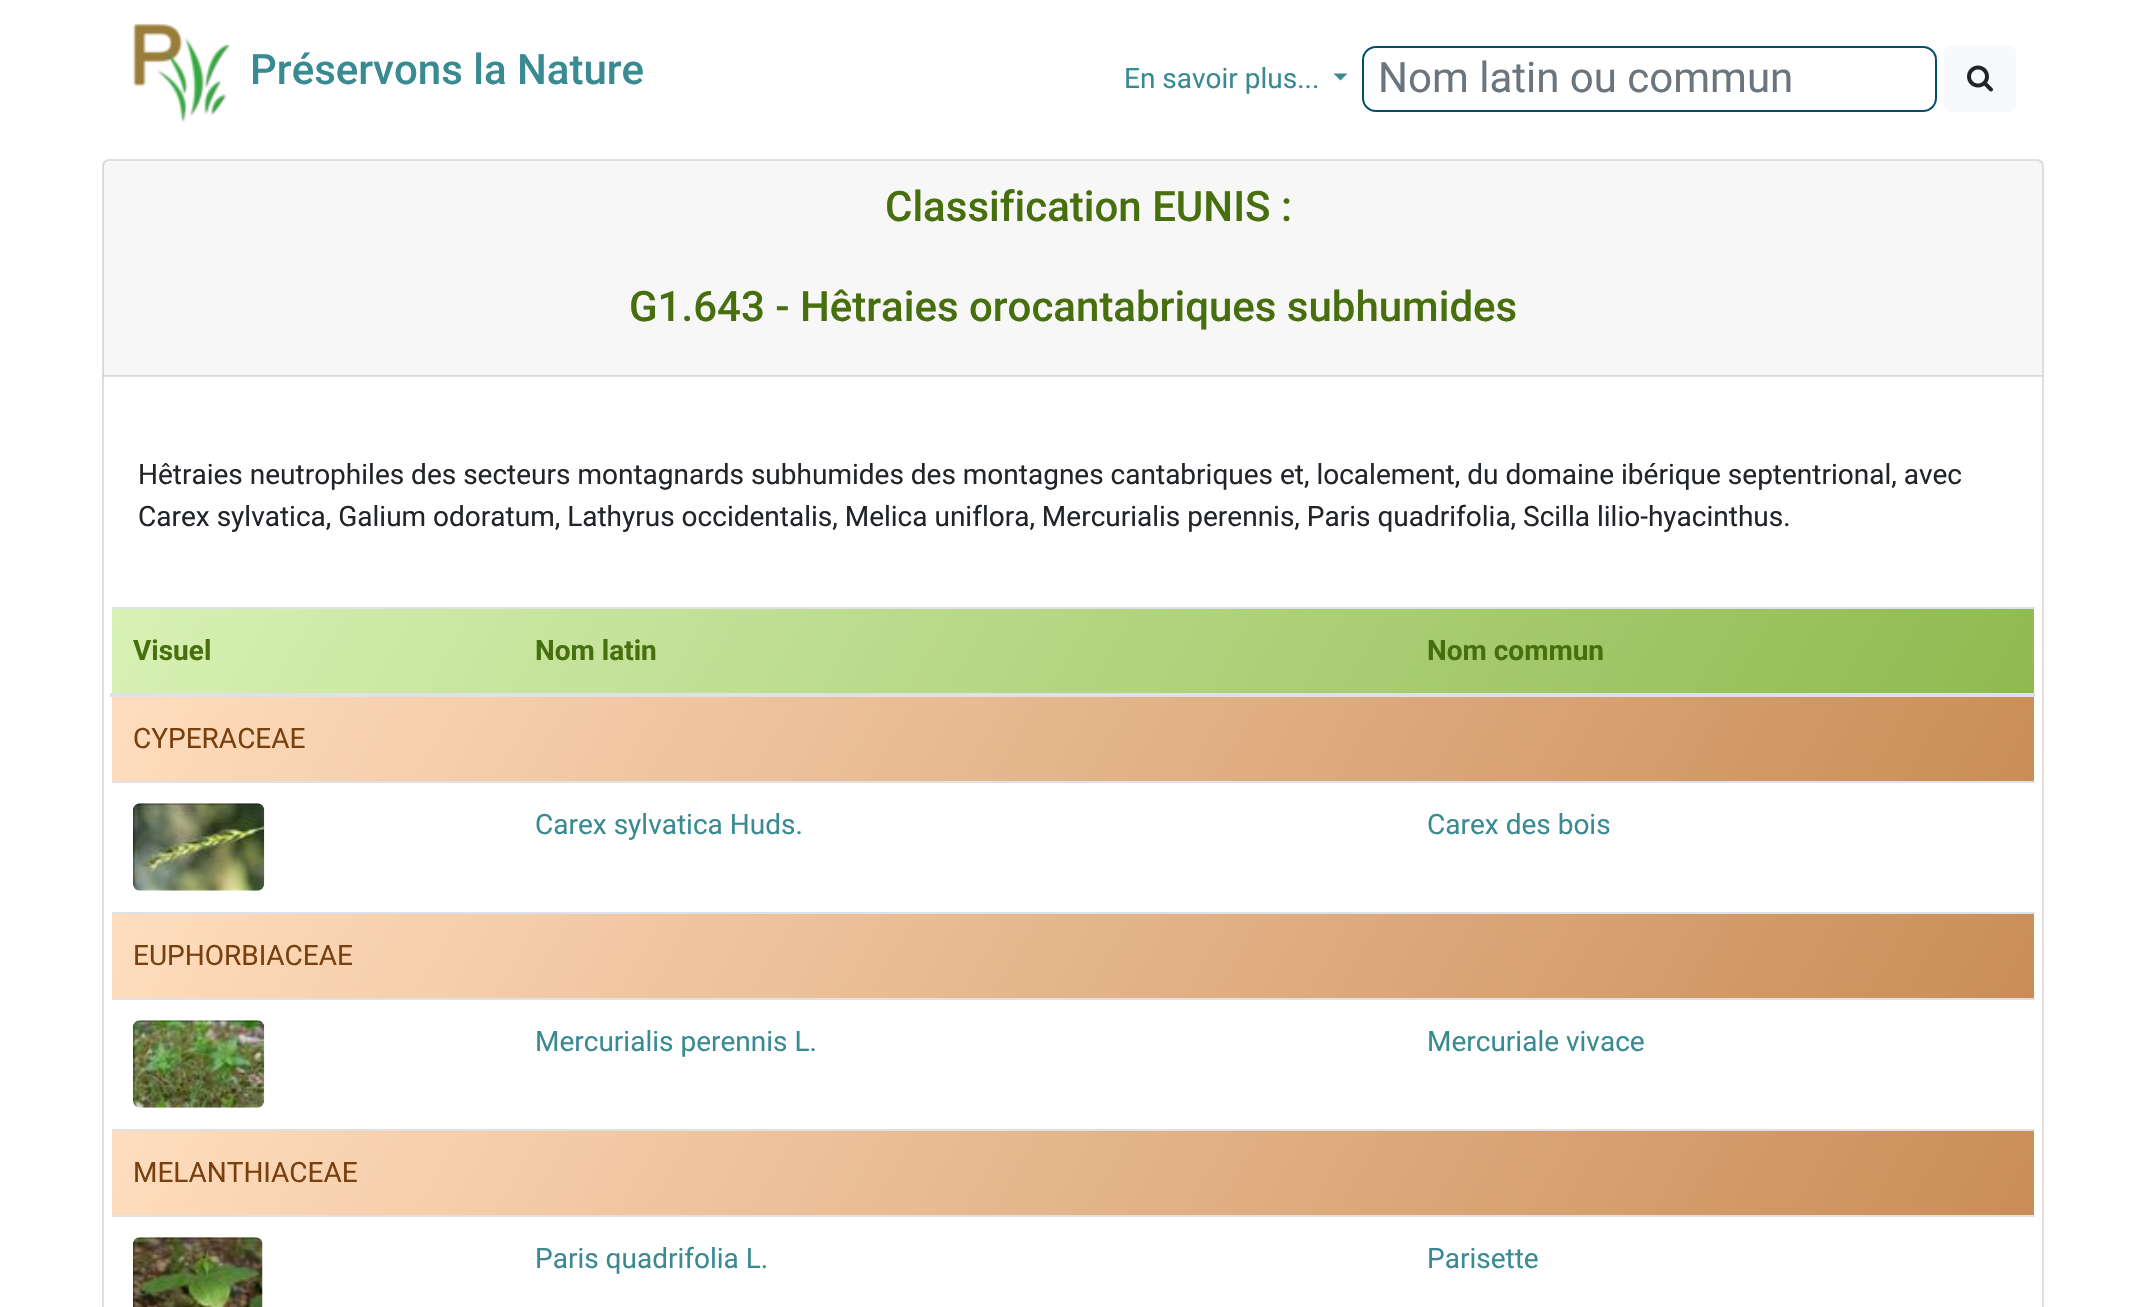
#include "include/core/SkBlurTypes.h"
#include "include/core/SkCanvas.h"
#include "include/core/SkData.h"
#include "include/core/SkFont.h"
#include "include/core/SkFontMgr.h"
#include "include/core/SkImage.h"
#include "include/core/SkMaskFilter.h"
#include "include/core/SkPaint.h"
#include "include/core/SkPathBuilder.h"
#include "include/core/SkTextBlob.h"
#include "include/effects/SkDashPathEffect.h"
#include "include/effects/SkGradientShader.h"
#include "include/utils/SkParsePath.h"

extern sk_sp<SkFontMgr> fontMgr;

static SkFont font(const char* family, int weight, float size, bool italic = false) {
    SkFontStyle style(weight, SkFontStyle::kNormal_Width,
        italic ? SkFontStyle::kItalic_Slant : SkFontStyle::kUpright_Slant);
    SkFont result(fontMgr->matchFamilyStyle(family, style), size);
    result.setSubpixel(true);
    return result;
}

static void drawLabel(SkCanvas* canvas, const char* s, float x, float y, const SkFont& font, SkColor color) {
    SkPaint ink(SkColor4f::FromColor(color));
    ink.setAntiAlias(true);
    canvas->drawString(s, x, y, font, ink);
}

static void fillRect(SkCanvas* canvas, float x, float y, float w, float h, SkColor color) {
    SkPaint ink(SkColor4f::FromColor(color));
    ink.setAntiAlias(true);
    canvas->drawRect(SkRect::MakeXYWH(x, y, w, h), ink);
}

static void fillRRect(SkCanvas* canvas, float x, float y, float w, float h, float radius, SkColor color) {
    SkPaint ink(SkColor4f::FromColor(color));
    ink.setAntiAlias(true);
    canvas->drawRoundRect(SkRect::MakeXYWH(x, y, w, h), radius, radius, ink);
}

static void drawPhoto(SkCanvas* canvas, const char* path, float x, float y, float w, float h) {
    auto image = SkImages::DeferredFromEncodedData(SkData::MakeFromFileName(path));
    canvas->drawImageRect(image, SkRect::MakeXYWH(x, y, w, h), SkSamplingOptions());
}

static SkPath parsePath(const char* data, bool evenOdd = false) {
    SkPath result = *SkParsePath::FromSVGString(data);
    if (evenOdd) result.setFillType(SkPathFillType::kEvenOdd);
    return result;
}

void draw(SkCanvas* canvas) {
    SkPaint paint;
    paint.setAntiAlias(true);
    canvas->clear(0xFFFFFFFF);
    drawPhoto(canvas, "assets/img1.png", 132, 23, 98, 100);
    SkFont font1 = font("Roboto", 500, 42);
    drawLabel(canvas, "Préservons la Nature", 250, 84, font1, 0xFF398A91);
    SkFont font2 = font("Roboto", 400, 28);
    drawLabel(canvas, "En savoir plus...", 1124, 88, font2, 0xFF398A91);
    paint.setColor(0xFF398A91);
    canvas->drawPath(parsePath("M1333.5 73.5H1347.5L1340.5 80.5Z"), paint);
    paint.setStroke(true);
    paint.setStrokeWidth(2);
    paint.setColor(0xFF024E6A);
    canvas->drawRoundRect(SkRect::MakeXYWH(1363, 47, 573, 64), 13, 13, paint);
    SkFont font3 = font("Roboto", 400, 42);
    drawLabel(canvas, "Nom latin ou commun", 1378, 92, font3, 0xFF6C757D);
    fillRRect(canvas, 1944, 46, 72, 66, 7, 0xFFF8F9FA);
    drawPhoto(canvas, "assets/img2.png", 1967, 65, 26, 27);
    paint.setColor(0xFFDFDFDF);
    canvas->drawRoundRect(SkRect::MakeXYWH(103, 160, 1940, 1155), 6, 6, paint);
    fillRect(canvas, 103, 161, 1939, 215, 0x08000000);
    fillRect(canvas, 103, 375, 1939, 2, 0x1F000000);
    drawLabel(canvas, "Classification EUNIS :", 885, 221, font1, 0xFF476F0D);
    drawLabel(canvas, "G1.643 - Hêtraies orocantabriques subhumides", 629, 321, font1, 0xFF476F0D);
    drawLabel(canvas, "Hêtraies neutrophiles des secteurs montagnards subhumides des montagnes cantabriques et, localement, du domaine ibérique septentrional, avec", 138, 484, font2, 0xFF212529);
    drawLabel(canvas, "Carex sylvatica, Galium odoratum, Lathyrus occidentalis, Melica uniflora, Mercurialis perennis, Paris quadrifolia, Scilla lilio-hyacinthus.", 138, 526, font2, 0xFF212529);
    paint.setStroke(false);
    {
        const SkColor colors[] = {0xFFD8F1B4, 0xFF8FBA50};
        const float stops[] = {0, 1};
        const SkPoint ends[] = {{334, 225}, {1812, 1079}};
        paint.setShader(SkGradientShader::MakeLinear(ends, colors, stops, 2, SkTileMode::kClamp));
        paint.setAlpha(255);
    }
    canvas->drawRect(SkRect::MakeXYWH(112, 609, 1922, 84), paint);
    SkFont font4 = font("Roboto", 700, 28);
    drawLabel(canvas, "Visuel", 133, 660, font4, 0xFF476F0D);
    drawLabel(canvas, "Nom latin", 535, 660, font4, 0xFF476F0D);
    fillRect(canvas, 112, 607, 1923, 2, 0xFFDEE2E6);
    fillRect(canvas, 110, 693, 1925, 4, 0xFFDEE2E6);
    drawLabel(canvas, "Nom commun", 1427, 660, font4, 0xFF476F0D);
    {
        const SkColor colors[] = {0xFFFFDDBE, 0xFFCA8D57};
        const float stops[] = {0, 1};
        const SkPoint ends[] = {{334, 313}, {1812, 1166}};
        paint.setShader(SkGradientShader::MakeLinear(ends, colors, stops, 2, SkTileMode::kClamp));
        paint.setAlpha(255);
    }
    canvas->drawRect(SkRect::MakeXYWH(112, 697, 1922, 84), paint);
    drawLabel(canvas, "CYPERACEAE", 133, 748, font2, 0xFF79400E);
    drawPhoto(canvas, "assets/img3.png", 133, 803, 132, 88);
    drawLabel(canvas, "Carex sylvatica Huds.", 535, 834, font2, 0xFF398A91);
    fillRect(canvas, 112, 781, 1923, 2, 0xFFDEE2E6);
    drawLabel(canvas, "Carex des bois", 1427, 834, font2, 0xFF398A91);
    {
        const SkColor colors[] = {0xFFFFDDBE, 0xFFCA8D57};
        const float stops[] = {0, 1};
        const SkPoint ends[] = {{334, 447}, {1811, 1300}};
        paint.setShader(SkGradientShader::MakeLinear(ends, colors, stops, 2, SkTileMode::kClamp));
        paint.setAlpha(255);
    }
    canvas->drawRect(SkRect::MakeXYWH(112, 914, 1922, 1), paint);
    {
        const SkColor colors[] = {0xFFFFDDBE, 0xFFCA8D57};
        const float stops[] = {0, 1};
        const SkPoint ends[] = {{334, 531}, {1811, 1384}};
        paint.setShader(SkGradientShader::MakeLinear(ends, colors, stops, 2, SkTileMode::kClamp));
        paint.setAlpha(255);
    }
    canvas->drawRect(SkRect::MakeXYWH(112, 915, 1922, 83), paint);
    fillRect(canvas, 112, 912, 1923, 2, 0xFFDEE2E6);
    drawLabel(canvas, "EUPHORBIACEAE", 133, 965, font2, 0xFF79400E);
    drawPhoto(canvas, "assets/img4.png", 133, 1020, 132, 88);
    drawLabel(canvas, "Mercurialis perennis L.", 535, 1051, font2, 0xFF398A91);
    fillRect(canvas, 112, 998, 1923, 2, 0xFFDEE2E6);
    drawLabel(canvas, "Mercuriale vivace", 1427, 1051, font2, 0xFF398A91);
    {
        const SkColor colors[] = {0xFFFFDDBE, 0xFFCA8D57};
        const float stops[] = {0, 1};
        const SkPoint ends[] = {{334, 664}, {1811, 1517}};
        paint.setShader(SkGradientShader::MakeLinear(ends, colors, stops, 2, SkTileMode::kClamp));
        paint.setAlpha(255);
    }
    canvas->drawRect(SkRect::MakeXYWH(112, 1131, 1922, 1), paint);
    {
        const SkColor colors[] = {0xFFFFDDBE, 0xFFCA8D57};
        const float stops[] = {0, 1};
        const SkPoint ends[] = {{334, 748}, {1811, 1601}};
        paint.setShader(SkGradientShader::MakeLinear(ends, colors, stops, 2, SkTileMode::kClamp));
        paint.setAlpha(255);
    }
    canvas->drawRect(SkRect::MakeXYWH(112, 1132, 1922, 83), paint);
    fillRect(canvas, 112, 1129, 1923, 2, 0xFFDEE2E6);
    drawLabel(canvas, "MELANTHIACEAE", 133, 1182, font2, 0xFF79400E);
    drawPhoto(canvas, "assets/img5.png", 133, 1237, 130, 70);
    drawLabel(canvas, "Paris quadrifolia L.", 535, 1268, font2, 0xFF398A91);
    fillRect(canvas, 112, 1215, 1923, 2, 0xFFDEE2E6);
    drawLabel(canvas, "Parisette", 1427, 1268, font2, 0xFF398A91);
}
